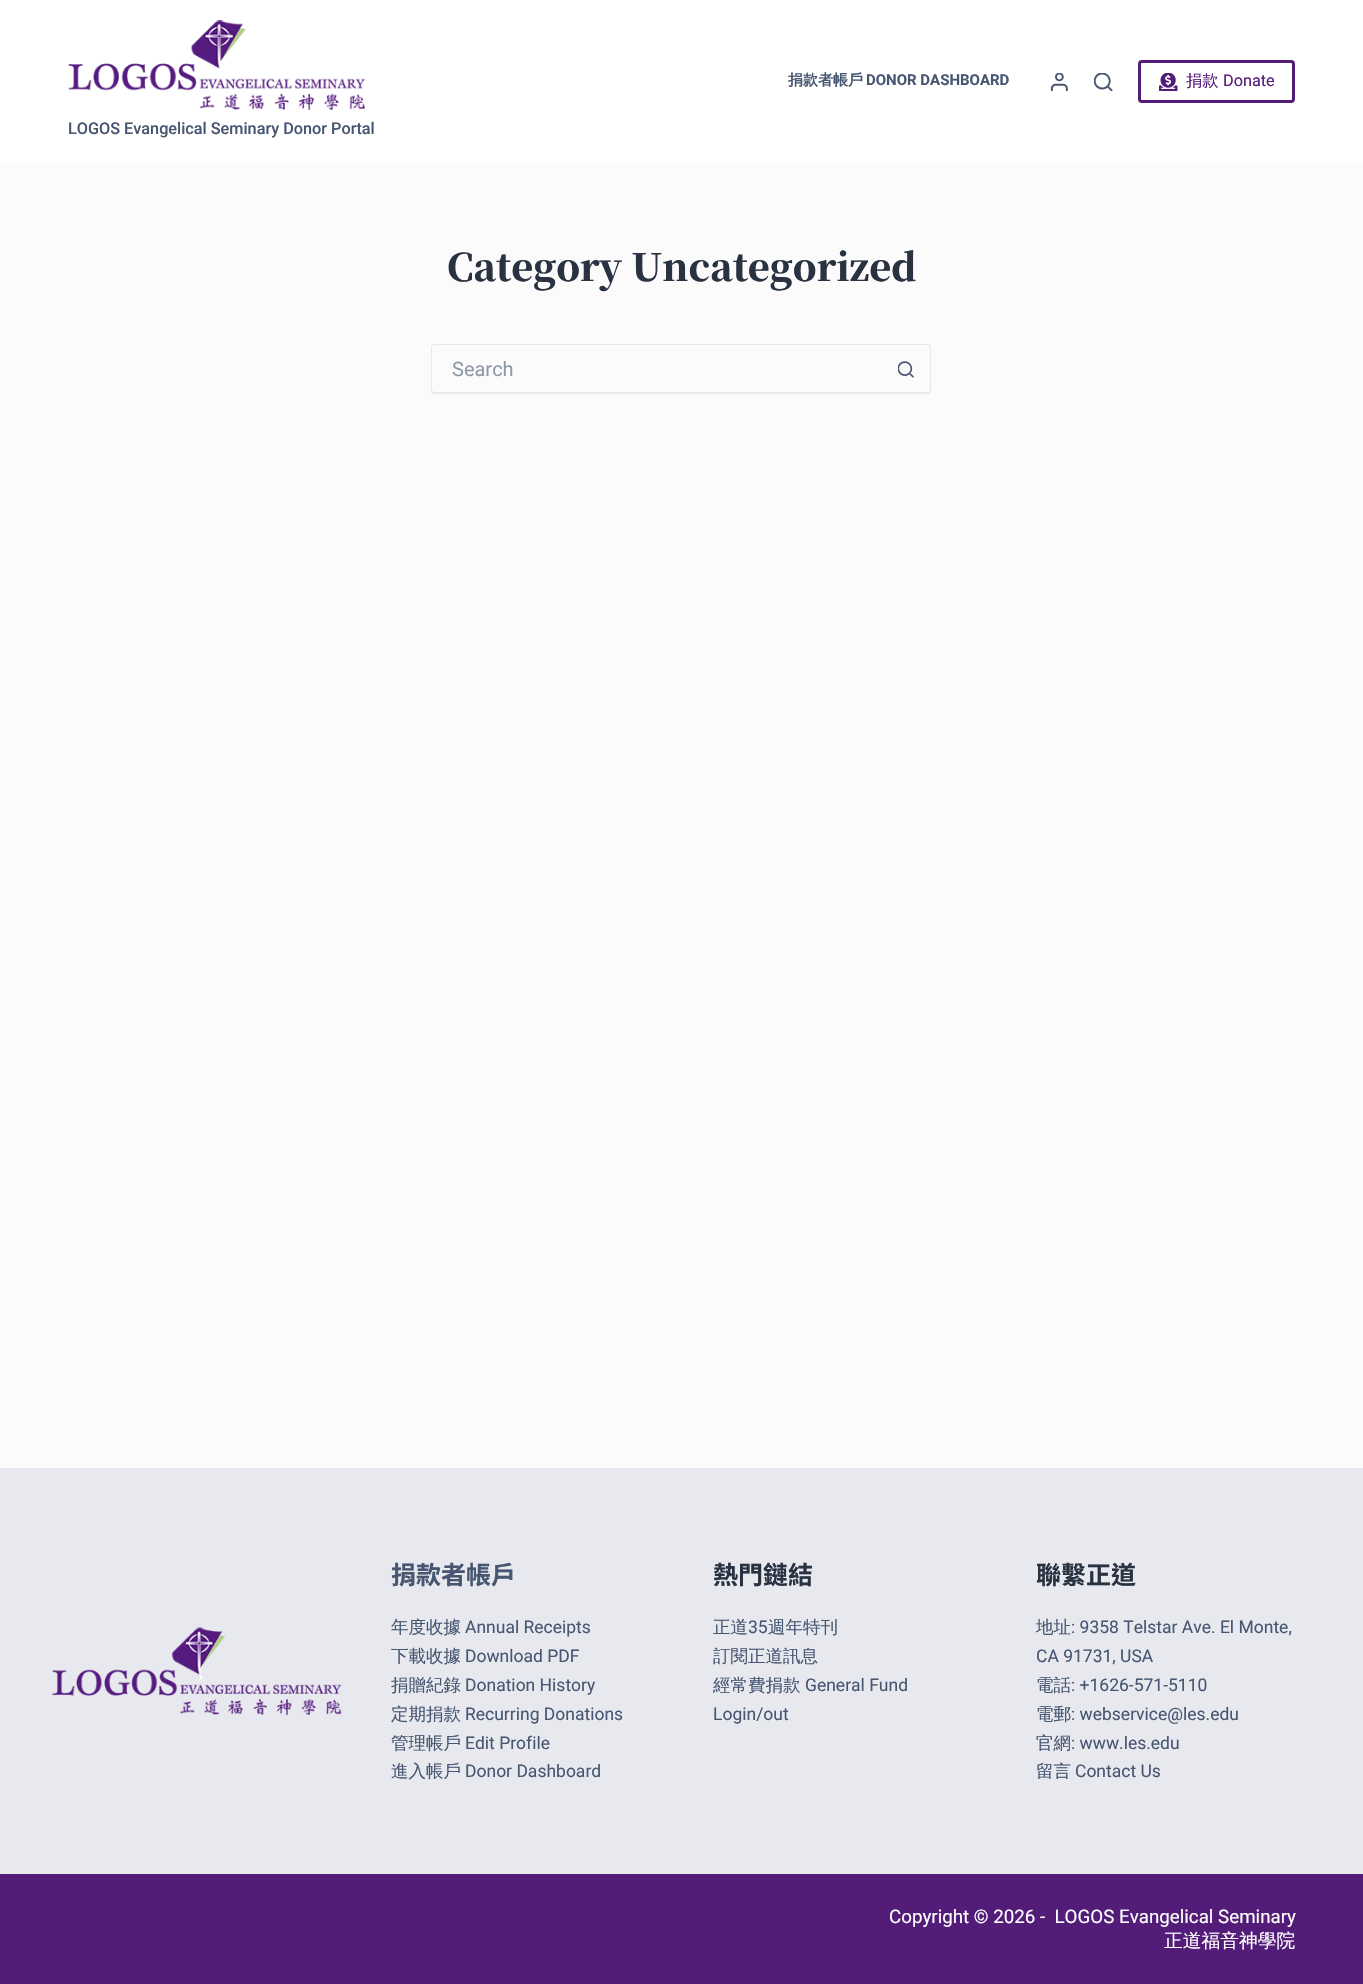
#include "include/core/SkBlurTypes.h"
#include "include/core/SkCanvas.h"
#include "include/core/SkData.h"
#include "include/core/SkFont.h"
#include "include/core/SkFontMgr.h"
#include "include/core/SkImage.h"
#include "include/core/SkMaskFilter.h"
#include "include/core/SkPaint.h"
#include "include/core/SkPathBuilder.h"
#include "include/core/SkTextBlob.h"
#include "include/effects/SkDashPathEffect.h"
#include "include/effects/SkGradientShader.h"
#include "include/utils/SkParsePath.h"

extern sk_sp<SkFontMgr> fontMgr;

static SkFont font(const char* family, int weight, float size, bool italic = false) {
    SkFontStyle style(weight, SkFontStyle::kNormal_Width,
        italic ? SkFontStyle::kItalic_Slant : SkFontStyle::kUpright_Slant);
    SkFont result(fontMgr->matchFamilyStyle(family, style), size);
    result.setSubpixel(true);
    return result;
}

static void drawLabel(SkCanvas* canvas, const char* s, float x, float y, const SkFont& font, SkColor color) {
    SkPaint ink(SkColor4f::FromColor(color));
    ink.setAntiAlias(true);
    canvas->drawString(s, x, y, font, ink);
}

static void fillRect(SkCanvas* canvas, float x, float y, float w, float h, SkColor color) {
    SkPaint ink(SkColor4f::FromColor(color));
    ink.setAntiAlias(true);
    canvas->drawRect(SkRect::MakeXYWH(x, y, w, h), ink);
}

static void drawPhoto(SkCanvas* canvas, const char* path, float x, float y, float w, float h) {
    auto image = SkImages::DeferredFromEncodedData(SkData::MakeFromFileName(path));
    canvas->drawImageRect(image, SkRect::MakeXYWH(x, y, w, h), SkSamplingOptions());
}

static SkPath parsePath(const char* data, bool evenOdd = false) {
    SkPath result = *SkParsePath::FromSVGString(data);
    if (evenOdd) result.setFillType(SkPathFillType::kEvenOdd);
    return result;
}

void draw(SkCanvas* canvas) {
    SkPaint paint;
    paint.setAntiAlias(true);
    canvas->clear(0xFFFBFBFC);
    fillRect(canvas, 0, 0, 1363, 163, 0xFFFFFFFF);
    SkFont font1 = font("WenQuanYi Zen Hei", 700, 15);
    drawLabel(canvas, "捐款者帳戶", 788, 85, font1, 0xFF475671);
    SkFont font2 = font("Roboto", 700, 15);
    drawLabel(canvas, "DONOR DASHBOARD", 866, 85, font2, 0xFF475671);
    drawPhoto(canvas, "assets/img1.png", 1050, 73, 18, 18);
    drawPhoto(canvas, "assets/img2.png", 1094, 73, 19, 18);
    paint.setStroke(true);
    paint.setStrokeWidth(3);
    paint.setColor(0xFF521C78);
    canvas->drawRoundRect(SkRect::MakeXYWH(1139.5f, 61.5f, 154, 40), 2.5f, 2.5f, paint);
    drawPhoto(canvas, "assets/img3.png", 1159, 73, 19, 18);
    SkFont font3 = font("WenQuanYi Zen Hei", 500, 16.25f);
    drawLabel(canvas, "捐款", 1186, 86, font3, 0xFF521C78);
    SkFont font4 = font("Roboto", 400, 16.25f);
    drawLabel(canvas, "Donate", 1223, 86, font4, 0xFF521C78);
    drawPhoto(canvas, "assets/img4.png", 68, 20, 297, 90);
    SkFont font5 = font("Roboto", 500, 16.25f);
    drawLabel(canvas, "LOGOS Evangelical Seminary Donor Portal", 68, 134, font5, 0xFF475671);
    SkFont font6 = font("Noto Serif TC", 900, 37.5f);
    drawLabel(canvas, "Category Uncategorized", 447, 281, font6, 0xFF293241);
    paint.setStroke(false);
    paint.setColor(0xFFE7E9EF);
    canvas->drawPath(parsePath("M435 344H881V394H435C433 394 431 392 431 390V348C431 345 433 344 435 344ZM435 345H881V392H435C434 392 432 391 432 390V348C432 346 434 345 435 345Z", true), paint);
    SkFont font7 = font("Roboto", 400, 20);
    drawLabel(canvas, "Search", 452, 376, font7, 0xFF8F98A9);
    canvas->drawPath(parsePath("M881 344H928C930 344 931 345 931 348V390C931 392 930 394 928 394H881ZM881 345H928C929 345 930 346 930 348V390C930 391 929 392 928 392H881Z", true), paint);
    drawPhoto(canvas, "assets/img5.png", 898, 361, 16, 17);
    fillRect(canvas, 0, 1468, 1363, 406, 0xFFE7E9EF);
    drawPhoto(canvas, "assets/img6.png", 52, 1627, 290, 88);
    SkFont font8 = font("Noto Sans TC", 700, 25);
    drawLabel(canvas, "捐款者帳戶", 391, 1584, font8, 0xFF475671);
    SkFont font9 = font("WenQuanYi Zen Hei", 500, 17.5f);
    drawLabel(canvas, "年度收據", 391, 1633, font9, 0xFF475671);
    SkFont font10 = font("Roboto", 400, 17.5f);
    drawLabel(canvas, "Annual Receipts", 465, 1633, font10, 0xFF475671);
    drawLabel(canvas, "下載收據", 391, 1662, font9, 0xFF475671);
    drawLabel(canvas, "Download PDF", 465, 1662, font10, 0xFF475671);
    drawLabel(canvas, "捐贈紀錄", 391, 1691, font9, 0xFF475671);
    drawLabel(canvas, "Donation History", 465, 1691, font10, 0xFF475671);
    drawLabel(canvas, "定期捐款", 391, 1720, font9, 0xFF475671);
    drawLabel(canvas, "Recurring Donations", 465, 1720, font10, 0xFF475671);
    drawLabel(canvas, "管理帳戶", 391, 1749, font9, 0xFF475671);
    drawLabel(canvas, "Edit Profile", 465, 1749, font10, 0xFF475671);
    drawLabel(canvas, "進入帳戶", 391, 1777, font9, 0xFF475671);
    drawLabel(canvas, "Donor Dashboard", 465, 1777, font10, 0xFF475671);
    drawLabel(canvas, "熱門鏈結", 713, 1584, font8, 0xFF293241);
    drawLabel(canvas, "正道", 713, 1633, font9, 0xFF475671);
    drawLabel(canvas, "35", 748, 1633, font10, 0xFF475671);
    drawLabel(canvas, "週年特刊", 768, 1633, font9, 0xFF475671);
    drawLabel(canvas, "訂閱正道訊息", 713, 1662, font9, 0xFF475671);
    drawLabel(canvas, "經常費捐款", 713, 1691, font9, 0xFF475671);
    drawLabel(canvas, "General Fund", 805, 1691, font10, 0xFF475671);
    drawLabel(canvas, "Login/out", 713, 1720, font10, 0xFF475671);
    drawLabel(canvas, "聯繫正道", 1036, 1584, font8, 0xFF293241);
    drawLabel(canvas, "地址", 1036, 1633, font9, 0xFF475671);
    drawLabel(canvas, ": 9358 Telstar Ave. El Monte,", 1071, 1633, font10, 0xFF475671);
    drawLabel(canvas, "CA 91731, USA", 1036, 1662, font10, 0xFF475671);
    drawLabel(canvas, "電話", 1036, 1691, font9, 0xFF475671);
    drawLabel(canvas, ": +1626-571-5110", 1071, 1691, font10, 0xFF475671);
    drawLabel(canvas, "電郵", 1036, 1720, font9, 0xFF475671);
    drawLabel(canvas, ": webservice@les.edu", 1071, 1720, font10, 0xFF475671);
    drawLabel(canvas, "官網", 1036, 1749, font9, 0xFF475671);
    drawLabel(canvas, ": www.les.edu", 1071, 1749, font10, 0xFF475671);
    drawLabel(canvas, "留言", 1036, 1777, font9, 0xFF475671);
    drawLabel(canvas, "Contact Us", 1075, 1777, font10, 0xFF475671);
    fillRect(canvas, 0, 1874, 1363, 110, 0xFF521C78);
    SkFont font11 = font("Roboto", 400, 18.75f);
    drawLabel(canvas, "Copyright © 2026 -  LOGOS Evangelical Seminary", 889, 1923, font11, 0xFFFFFFFF);
    SkFont font12 = font("WenQuanYi Zen Hei", 500, 18.75f);
    drawLabel(canvas, "正道福音神學院", 1164, 1947, font12, 0xFFFFFFFF);
}
